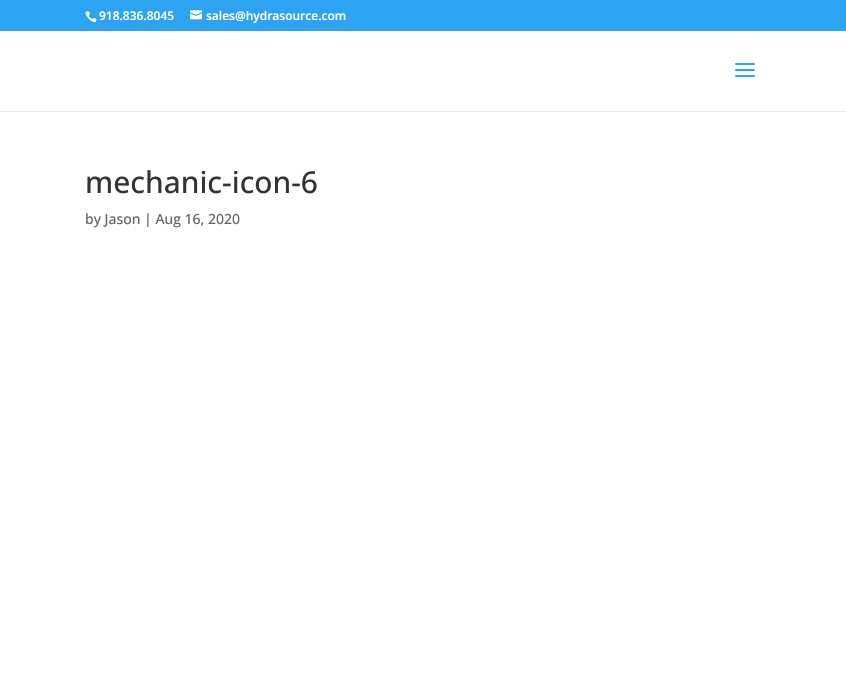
#include "include/core/SkBlurTypes.h"
#include "include/core/SkCanvas.h"
#include "include/core/SkData.h"
#include "include/core/SkFont.h"
#include "include/core/SkFontMgr.h"
#include "include/core/SkImage.h"
#include "include/core/SkMaskFilter.h"
#include "include/core/SkPaint.h"
#include "include/core/SkPathBuilder.h"
#include "include/core/SkTextBlob.h"
#include "include/effects/SkDashPathEffect.h"
#include "include/effects/SkGradientShader.h"
#include "include/utils/SkParsePath.h"

extern sk_sp<SkFontMgr> fontMgr;

static SkFont font(const char* family, int weight, float size, bool italic = false) {
    SkFontStyle style(weight, SkFontStyle::kNormal_Width,
        italic ? SkFontStyle::kItalic_Slant : SkFontStyle::kUpright_Slant);
    SkFont result(fontMgr->matchFamilyStyle(family, style), size);
    result.setSubpixel(true);
    return result;
}

static void drawLabel(SkCanvas* canvas, const char* s, float x, float y, const SkFont& font, SkColor color) {
    SkPaint ink(SkColor4f::FromColor(color));
    ink.setAntiAlias(true);
    canvas->drawString(s, x, y, font, ink);
}

static void fillRect(SkCanvas* canvas, float x, float y, float w, float h, SkColor color) {
    SkPaint ink(SkColor4f::FromColor(color));
    ink.setAntiAlias(true);
    canvas->drawRect(SkRect::MakeXYWH(x, y, w, h), ink);
}

static void drawPhoto(SkCanvas* canvas, const char* path, float x, float y, float w, float h) {
    auto image = SkImages::DeferredFromEncodedData(SkData::MakeFromFileName(path));
    canvas->drawImageRect(image, SkRect::MakeXYWH(x, y, w, h), SkSamplingOptions());
}

void draw(SkCanvas* canvas) {
    SkPaint paint;
    paint.setAntiAlias(true);
    canvas->clear(0xFFFFFFFF);
    fillRect(canvas, 0, 0, 846, 31, 0xFF2EA3F2);
    drawPhoto(canvas, "assets/img1.png", 85, 11, 12, 12);
    SkFont font1 = font("Open Sans", 600, 12);
    drawLabel(canvas, "918.836.8045", 99, 20, font1, 0xFFFFFFFF);
    drawPhoto(canvas, "assets/img2.png", 190, 10, 12, 10);
    drawLabel(canvas, "sales@hydrasource.com", 206, 20, font1, 0xFFFFFFFF);
    fillRect(canvas, 0, 111, 846, 1, 0xFFE6E6E6);
    drawPhoto(canvas, "assets/img3.png", 735, 63, 20, 14);
    SkFont font2 = font("Open Sans", 500, 30);
    drawLabel(canvas, "mechanic-icon-6", 85, 193, font2, 0xFF333333);
    SkFont font3 = font("Open Sans", 500, 14);
    drawLabel(canvas, "by Jason | Aug 16, 2020", 85, 224, font3, 0xFF666666);
}
